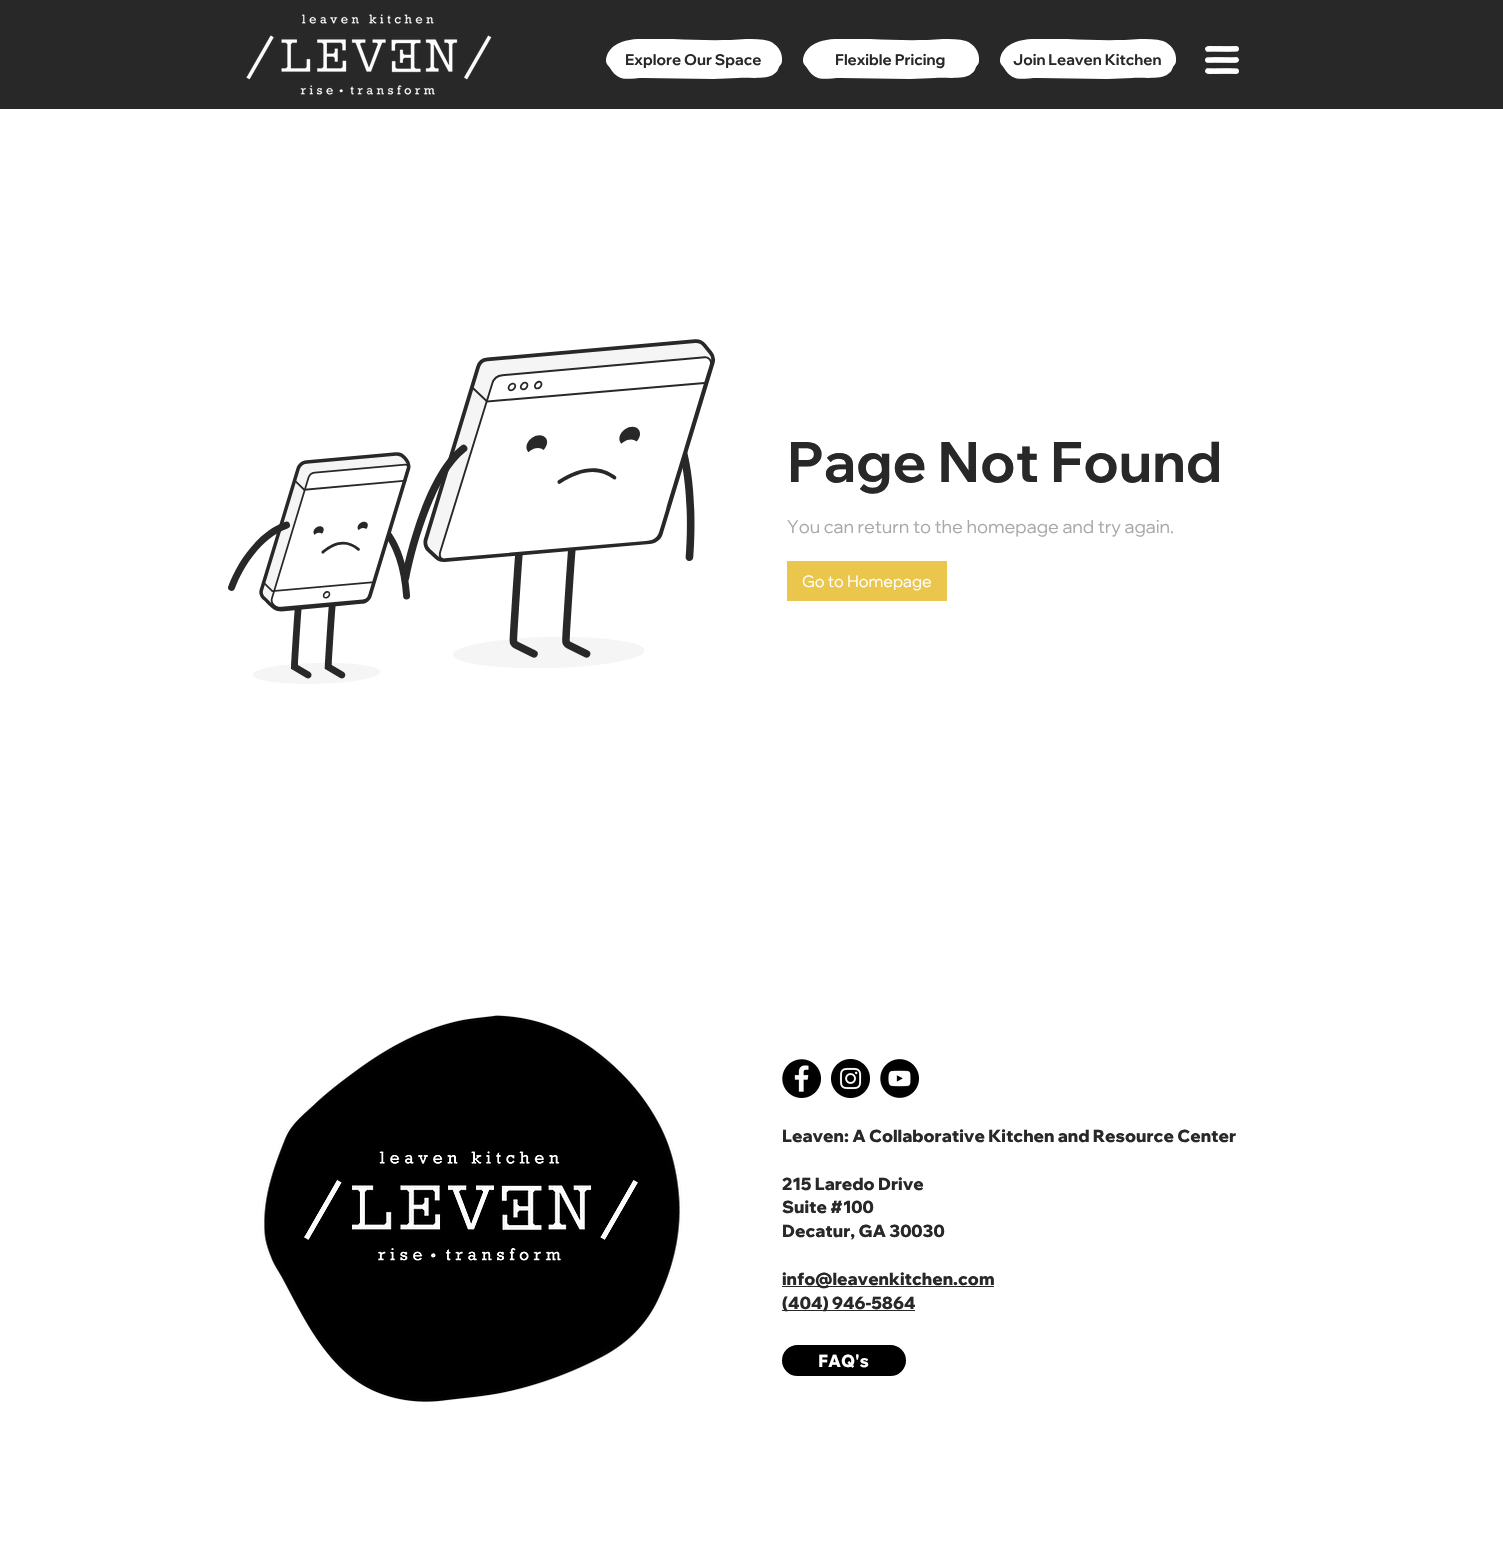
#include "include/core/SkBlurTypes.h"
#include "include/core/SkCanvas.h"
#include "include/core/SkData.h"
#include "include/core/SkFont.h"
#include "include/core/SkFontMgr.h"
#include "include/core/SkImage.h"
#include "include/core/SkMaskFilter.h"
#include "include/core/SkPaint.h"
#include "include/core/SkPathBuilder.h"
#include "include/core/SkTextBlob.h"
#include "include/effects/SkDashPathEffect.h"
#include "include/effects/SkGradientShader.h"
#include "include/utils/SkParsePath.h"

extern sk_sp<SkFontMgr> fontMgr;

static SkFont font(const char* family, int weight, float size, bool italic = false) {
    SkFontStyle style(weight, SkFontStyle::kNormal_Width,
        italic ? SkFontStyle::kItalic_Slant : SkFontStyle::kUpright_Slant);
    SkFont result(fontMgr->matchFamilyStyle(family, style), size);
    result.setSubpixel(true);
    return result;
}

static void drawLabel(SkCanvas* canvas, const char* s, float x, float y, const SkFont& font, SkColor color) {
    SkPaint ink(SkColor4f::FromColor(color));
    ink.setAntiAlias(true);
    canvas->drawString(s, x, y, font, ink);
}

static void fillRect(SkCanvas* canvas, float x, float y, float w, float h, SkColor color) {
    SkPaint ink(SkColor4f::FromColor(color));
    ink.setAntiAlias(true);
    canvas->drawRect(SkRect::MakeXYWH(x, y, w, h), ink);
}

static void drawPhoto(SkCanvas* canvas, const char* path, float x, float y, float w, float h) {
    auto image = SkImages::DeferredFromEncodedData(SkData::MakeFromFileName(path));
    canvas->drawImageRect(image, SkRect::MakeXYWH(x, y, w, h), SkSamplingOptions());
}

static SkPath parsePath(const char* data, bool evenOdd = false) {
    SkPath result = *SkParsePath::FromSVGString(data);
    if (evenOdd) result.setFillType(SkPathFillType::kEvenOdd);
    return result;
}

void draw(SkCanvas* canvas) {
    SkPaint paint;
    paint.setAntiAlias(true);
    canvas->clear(0xFFFFFFFF);
    fillRect(canvas, 0, 0, 1503, 109, 0xFF282828);
    drawPhoto(canvas, "assets/img1.png", 246, 14, 246, 81);
    paint.setColor(0xFFFFFFFF);
    canvas->drawPath(parsePath("M746 39C753 39 762 39 769 41C777 44 783 52 782 61C782 64 780 65 779 67C778 70 777 72 774 74C767 80 748 77 738 78C730 78 722 79 713 79L644 78C628 78 619 83 610 68C609 66 606 64 606 61C606 55 609 50 614 46C624 39 635 39 646 39H673C697 40 722 41 746 39Z"), paint);
    SkFont font1 = font("Wix Madefor Display", 700, 15);
    drawLabel(canvas, "Explore Our Space", 625, 65, font1, 0xFF282828);
    canvas->drawPath(parsePath("M943 39C950 39 959 39 966 41C974 44 980 52 979 61C979 64 977 65 976 67C975 70 974 72 971 74C964 80 945 77 935 78C927 78 919 79 910 79L841 78C825 78 816 83 807 68C806 66 803 64 803 61C803 55 806 50 811 46C821 39 832 39 843 39H870C894 40 919 41 943 39Z"), paint);
    drawLabel(canvas, "Flexible Pricing", 835, 65, font1, 0xFF282828);
    canvas->drawPath(parsePath("M1140 39C1147 39 1156 39 1163 41C1171 44 1177 52 1176 61C1176 64 1174 65 1173 67C1172 70 1171 72 1168 74C1161 80 1142 77 1132 78C1124 78 1116 79 1107 79L1038 78C1022 78 1013 83 1004 68C1003 66 1000 64 1000 61C1000 55 1003 50 1008 46C1018 39 1029 39 1040 39H1067C1091 40 1116 41 1140 39Z"), paint);
    drawLabel(canvas, "Join Leaven Kitchen", 1013, 65, font1, 0xFF282828);
    drawPhoto(canvas, "assets/img2.png", 1205, 46, 34, 28);
    drawPhoto(canvas, "assets/img3.png", 228, 339, 488, 345);
    SkFont font2 = font("Wix Madefor Display", 700, 56);
    drawLabel(canvas, "Page Not Found", 787, 482, font2, 0xFF282828);
    SkFont font3 = font("Wix Madefor Display", 400, 18);
    drawLabel(canvas, "You can return to the homepage and try again.", 787, 533, font3, 0xFFA8A8A7);
    fillRect(canvas, 787, 561, 160, 40, 0xFFEBC64D);
    SkFont font4 = font("Wix Madefor Display", 400, 16);
    drawLabel(canvas, "Go to Homepage", 802, 587, font4, 0xFFFFFFFF);
    drawPhoto(canvas, "assets/img4.png", 262, 1015, 420, 387);
    drawPhoto(canvas, "assets/img5.png", 782, 1059, 39, 39);
    drawPhoto(canvas, "assets/img6.png", 831, 1059, 39, 39);
    drawPhoto(canvas, "assets/img7.png", 880, 1059, 39, 39);
    SkFont font5 = font("Wix Madefor Display", 800, 17);
    drawLabel(canvas, "Leaven: A Collaborative Kitchen and Resource Center", 782, 1142, font5, 0xFF282828);
    drawLabel(canvas, "215 Laredo Drive", 782, 1190, font5, 0xFF282828);
    drawLabel(canvas, "Suite #100", 782, 1213, font5, 0xFF282828);
    drawLabel(canvas, "Decatur, GA 30030", 782, 1237, font5, 0xFF282828);
    fillRect(canvas, 782, 1286, 212, 1, 0xFF282828);
    drawLabel(canvas, "info@leavenkitchen.com", 782, 1285, font5, 0xFF282828);
    fillRect(canvas, 782, 1310, 133, 1, 0xFF282828);
    drawLabel(canvas, "(404) 946-5864", 782, 1309, font5, 0xFF282828);
    paint.setColor(0xFF000000);
    canvas->drawRoundRect(SkRect::MakeXYWH(783, 1346, 122, 29), 14.5f, 14.5f, paint);
    paint.setStroke(true);
    paint.setStrokeWidth(2);
    canvas->drawRoundRect(SkRect::MakeXYWH(783, 1346, 122, 29), 14.5f, 14.5f, paint);
    SkFont font6 = font("Wix Madefor Text", 800, 17);
    drawLabel(canvas, "FAQ's", 818, 1367, font6, 0xFFFFFFFF);
}
